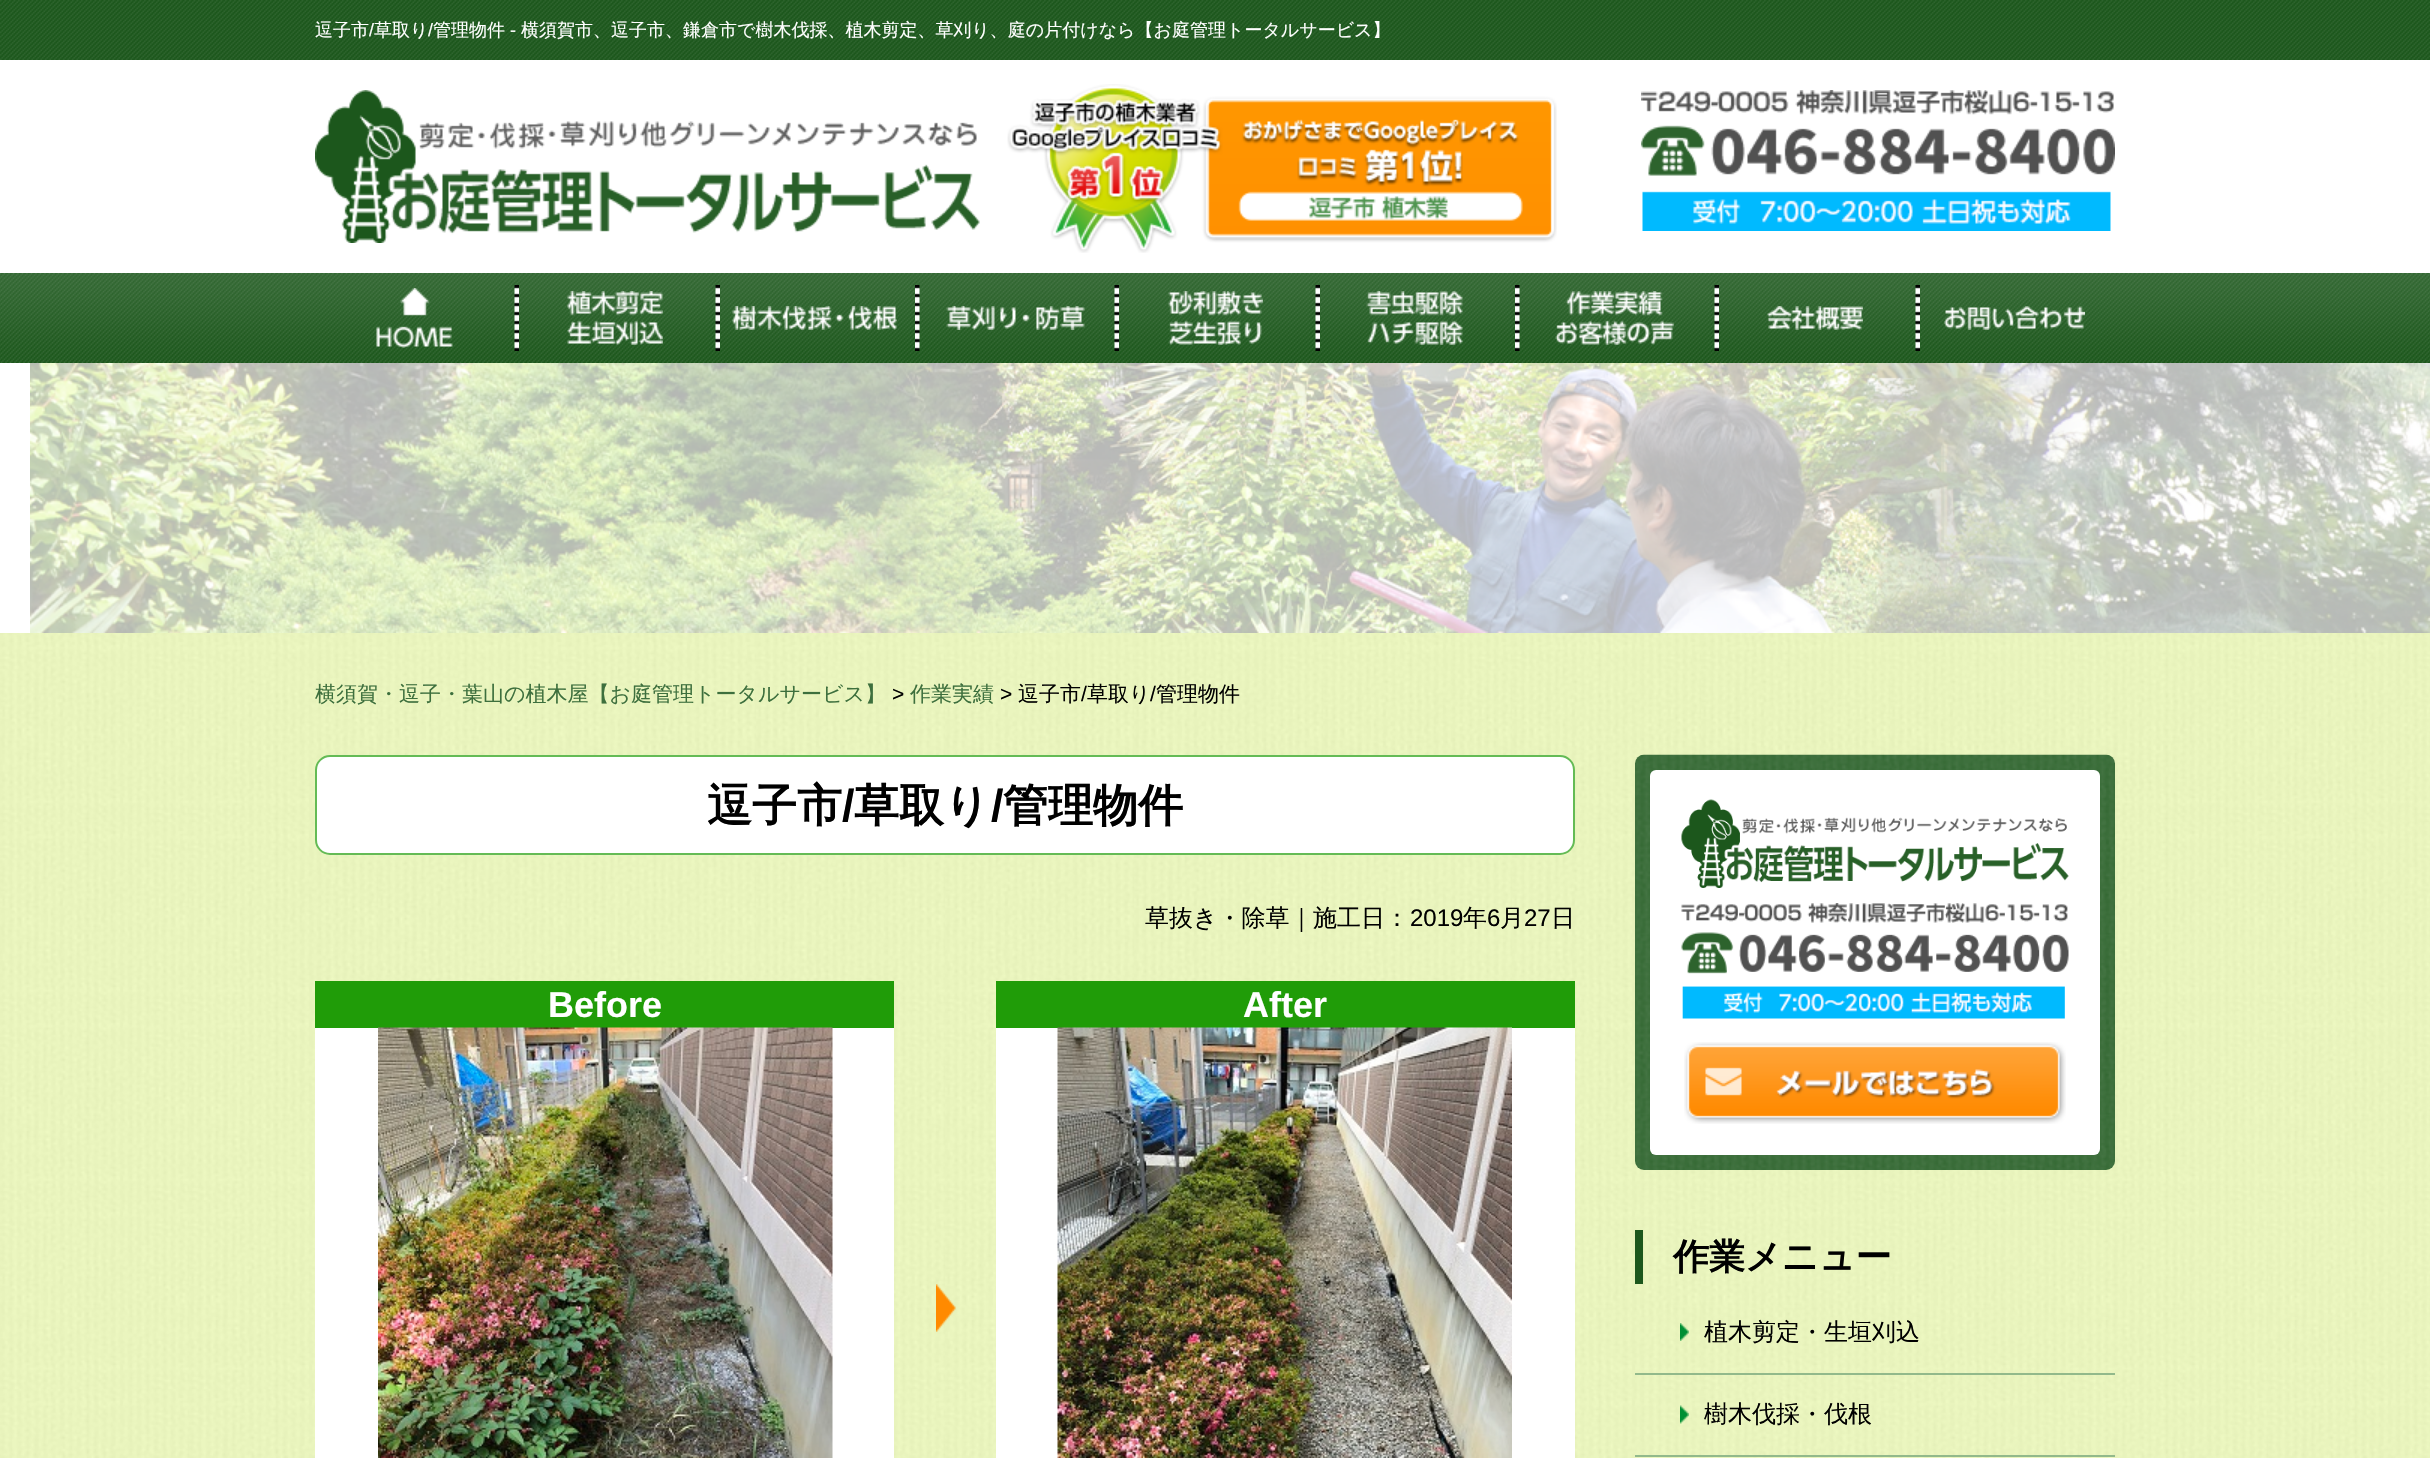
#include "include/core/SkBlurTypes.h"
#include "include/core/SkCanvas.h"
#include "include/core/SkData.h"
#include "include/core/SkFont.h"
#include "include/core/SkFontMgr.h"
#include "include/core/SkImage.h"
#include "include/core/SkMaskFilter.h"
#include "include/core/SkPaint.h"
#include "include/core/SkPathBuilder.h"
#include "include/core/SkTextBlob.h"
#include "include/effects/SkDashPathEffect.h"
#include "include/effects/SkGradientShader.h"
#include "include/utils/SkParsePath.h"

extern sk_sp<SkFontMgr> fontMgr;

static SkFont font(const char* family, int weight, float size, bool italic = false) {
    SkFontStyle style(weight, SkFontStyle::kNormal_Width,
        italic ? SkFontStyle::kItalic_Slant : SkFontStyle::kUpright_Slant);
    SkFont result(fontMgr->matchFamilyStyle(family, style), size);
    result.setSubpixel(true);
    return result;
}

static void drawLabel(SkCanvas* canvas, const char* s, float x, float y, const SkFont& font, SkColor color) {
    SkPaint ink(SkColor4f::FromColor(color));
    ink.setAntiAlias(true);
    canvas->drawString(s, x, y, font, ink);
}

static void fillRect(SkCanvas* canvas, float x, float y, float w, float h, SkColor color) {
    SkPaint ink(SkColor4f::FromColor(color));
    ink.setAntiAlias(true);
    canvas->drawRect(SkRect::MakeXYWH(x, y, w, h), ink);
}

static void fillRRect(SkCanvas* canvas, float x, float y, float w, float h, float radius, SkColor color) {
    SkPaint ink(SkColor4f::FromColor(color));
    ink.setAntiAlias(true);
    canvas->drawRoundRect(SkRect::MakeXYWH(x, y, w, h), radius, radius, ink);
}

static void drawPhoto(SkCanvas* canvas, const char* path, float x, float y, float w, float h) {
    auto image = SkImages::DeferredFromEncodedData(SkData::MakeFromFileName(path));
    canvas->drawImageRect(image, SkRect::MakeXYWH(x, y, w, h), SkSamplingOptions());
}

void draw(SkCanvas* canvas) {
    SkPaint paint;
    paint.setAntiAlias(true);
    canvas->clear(0xFFFFFFFF);
    drawPhoto(canvas, "assets/img1.png", 0, 0, 2430, 60);
    SkFont font1 = font("WenQuanYi Zen Hei", 500, 18);
    drawLabel(canvas, "逗子市", 315, 36, font1, 0xFFFFFFFF);
    SkFont font2 = font("Liberation Sans", 400, 18);
    drawLabel(canvas, "/", 369, 36, font2, 0xFFFFFFFF);
    drawLabel(canvas, "草取り", 374, 36, font1, 0xFFFFFFFF);
    drawLabel(canvas, "/", 428, 36, font2, 0xFFFFFFFF);
    drawLabel(canvas, "管理物件", 433, 36, font1, 0xFFFFFFFF);
    drawLabel(canvas, "-", 510, 36, font2, 0xFFFFFFFF);
    drawLabel(canvas, "横須賀市、逗子市、鎌倉市で樹木伐採、植木剪定、草刈り、庭の片付けなら【お庭管理トータルサービス】", 521, 36, font1, 0xFFFFFFFF);
    drawPhoto(canvas, "assets/img2.png", 315, 90, 665, 153);
    drawPhoto(canvas, "assets/img3.png", 1007, 84, 550, 169);
    drawPhoto(canvas, "assets/img4.png", 1641, 90, 474, 141);
    drawPhoto(canvas, "assets/img5.png", 0, 273, 2430, 90);
    drawPhoto(canvas, "assets/img6.png", 376, 288, 77, 60);
    drawPhoto(canvas, "assets/img7.png", 514, 285, 5, 66);
    drawPhoto(canvas, "assets/img8.png", 567, 291, 96, 54);
    drawPhoto(canvas, "assets/img9.png", 715, 285, 5, 66);
    drawPhoto(canvas, "assets/img10.png", 732, 306, 165, 24);
    drawPhoto(canvas, "assets/img11.png", 915, 285, 5, 66);
    drawPhoto(canvas, "assets/img12.png", 946, 306, 139, 24);
    drawPhoto(canvas, "assets/img13.png", 1114, 285, 5, 66);
    drawPhoto(canvas, "assets/img14.png", 1168, 291, 95, 54);
    drawPhoto(canvas, "assets/img15.png", 1315, 285, 5, 66);
    drawPhoto(canvas, "assets/img16.png", 1366, 291, 97, 54);
    drawPhoto(canvas, "assets/img17.png", 1515, 285, 5, 66);
    drawPhoto(canvas, "assets/img18.png", 1555, 291, 119, 54);
    drawPhoto(canvas, "assets/img19.png", 1714, 285, 5, 66);
    drawPhoto(canvas, "assets/img20.png", 1767, 306, 96, 24);
    drawPhoto(canvas, "assets/img21.png", 1915, 285, 5, 66);
    drawPhoto(canvas, "assets/img22.png", 1944, 306, 141, 24);
    drawPhoto(canvas, "assets/img23.png", 30, 363, 2400, 270);
    drawPhoto(canvas, "assets/img24.png", 0, 633, 2430, 825);
    SkFont font3 = font("WenQuanYi Zen Hei", 500, 21);
    drawLabel(canvas, "横須賀・逗子・葉山の植木屋【お庭管理トータルサービス】", 315, 701, font3, 0xFF3D6F3D);
    SkFont font4 = font("Liberation Sans", 400, 21);
    drawLabel(canvas, ">", 892, 701, font4, 0xFF000000);
    drawLabel(canvas, "作業実績", 910, 701, font3, 0xFF3D6F3D);
    drawLabel(canvas, ">", 1000, 701, font4, 0xFF000000);
    drawLabel(canvas, "逗子市", 1018, 701, font3, 0xFF000000);
    drawLabel(canvas, "/", 1081, 701, font4, 0xFF000000);
    drawLabel(canvas, "草取り", 1087, 701, font3, 0xFF000000);
    drawLabel(canvas, "/", 1150, 701, font4, 0xFF000000);
    drawLabel(canvas, "管理物件", 1156, 701, font3, 0xFF000000);
    paint.setColor(0xFFFFFFFF);
    canvas->drawRoundRect(SkRect::MakeXYWH(316, 756, 1258, 98), 14, 14, paint);
    paint.setStroke(true);
    paint.setStrokeWidth(2);
    paint.setColor(0xFF64BB55);
    canvas->drawRoundRect(SkRect::MakeXYWH(316, 756, 1258, 98), 14, 14, paint);
    SkFont font5 = font("WenQuanYi Zen Hei", 700, 45);
    drawLabel(canvas, "逗子市", 707, 821, font5, 0xFF000000);
    SkFont font6 = font("Liberation Sans", 700, 45);
    drawLabel(canvas, "/", 842, 821, font6, 0xFF000000);
    drawLabel(canvas, "草取り", 854, 821, font5, 0xFF000000);
    drawLabel(canvas, "/", 991, 821, font6, 0xFF000000);
    drawLabel(canvas, "管理物件", 1003, 821, font5, 0xFF000000);
    SkFont font7 = font("WenQuanYi Zen Hei", 500, 24);
    drawLabel(canvas, "草抜き・除草｜施工日：", 1145, 926, font7, 0xFF000000);
    SkFont font8 = font("Liberation Sans", 400, 24);
    drawLabel(canvas, "2019", 1410, 926, font8, 0xFF000000);
    drawLabel(canvas, "年", 1463, 926, font7, 0xFF000000);
    drawLabel(canvas, "6", 1487, 926, font8, 0xFF000000);
    drawLabel(canvas, "月", 1500, 926, font7, 0xFF000000);
    drawLabel(canvas, "27", 1524, 926, font8, 0xFF000000);
    drawLabel(canvas, "日", 1551, 926, font7, 0xFF000000);
    drawPhoto(canvas, "assets/img25.png", 936, 1284, 20, 48);
    fillRect(canvas, 315, 1028, 579, 430, 0xFFFFFFFF);
    fillRect(canvas, 315, 981, 579, 47, 0xFF209C08);
    SkFont font9 = font("Liberation Sans", 700, 36);
    drawLabel(canvas, "Before", 548, 1017, font9, 0xFFFFFFFF);
    drawPhoto(canvas, "assets/img26.png", 378, 1027, 455, 431);
    fillRect(canvas, 996, 1028, 579, 430, 0xFFFFFFFF);
    fillRect(canvas, 996, 981, 579, 47, 0xFF209C08);
    drawLabel(canvas, "After", 1243, 1017, font9, 0xFFFFFFFF);
    drawPhoto(canvas, "assets/img27.png", 1057, 1027, 455, 431);
    drawPhoto(canvas, "assets/img28.png", 1635, 754, 480, 416);
    fillRRect(canvas, 1650, 770, 450, 385, 6, 0xFFFFFFFF);
    drawPhoto(canvas, "assets/img29.png", 1681, 799, 388, 89);
    drawPhoto(canvas, "assets/img30.png", 1681, 903, 388, 116);
    drawPhoto(canvas, "assets/img31.png", 1684, 1042, 382, 82);
    fillRect(canvas, 1635, 1230, 8, 54, 0xFF1C571C);
    SkFont font10 = font("WenQuanYi Zen Hei", 700, 36);
    drawLabel(canvas, "作業メニュー", 1673, 1269, font10, 0xFF000000);
    fillRect(canvas, 1635, 1373, 480, 2, 0xFF92B98B);
    drawPhoto(canvas, "assets/img32.png", 1680, 1323, 9, 18);
    drawLabel(canvas, "植木剪定・生垣刈込", 1704, 1340, font7, 0xFF000000);
    fillRect(canvas, 1635, 1455, 480, 2, 0xFF92B98B);
    drawPhoto(canvas, "assets/img33.png", 1680, 1405, 9, 19);
    drawLabel(canvas, "樹木伐採・伐根", 1704, 1422, font7, 0xFF000000);
}
